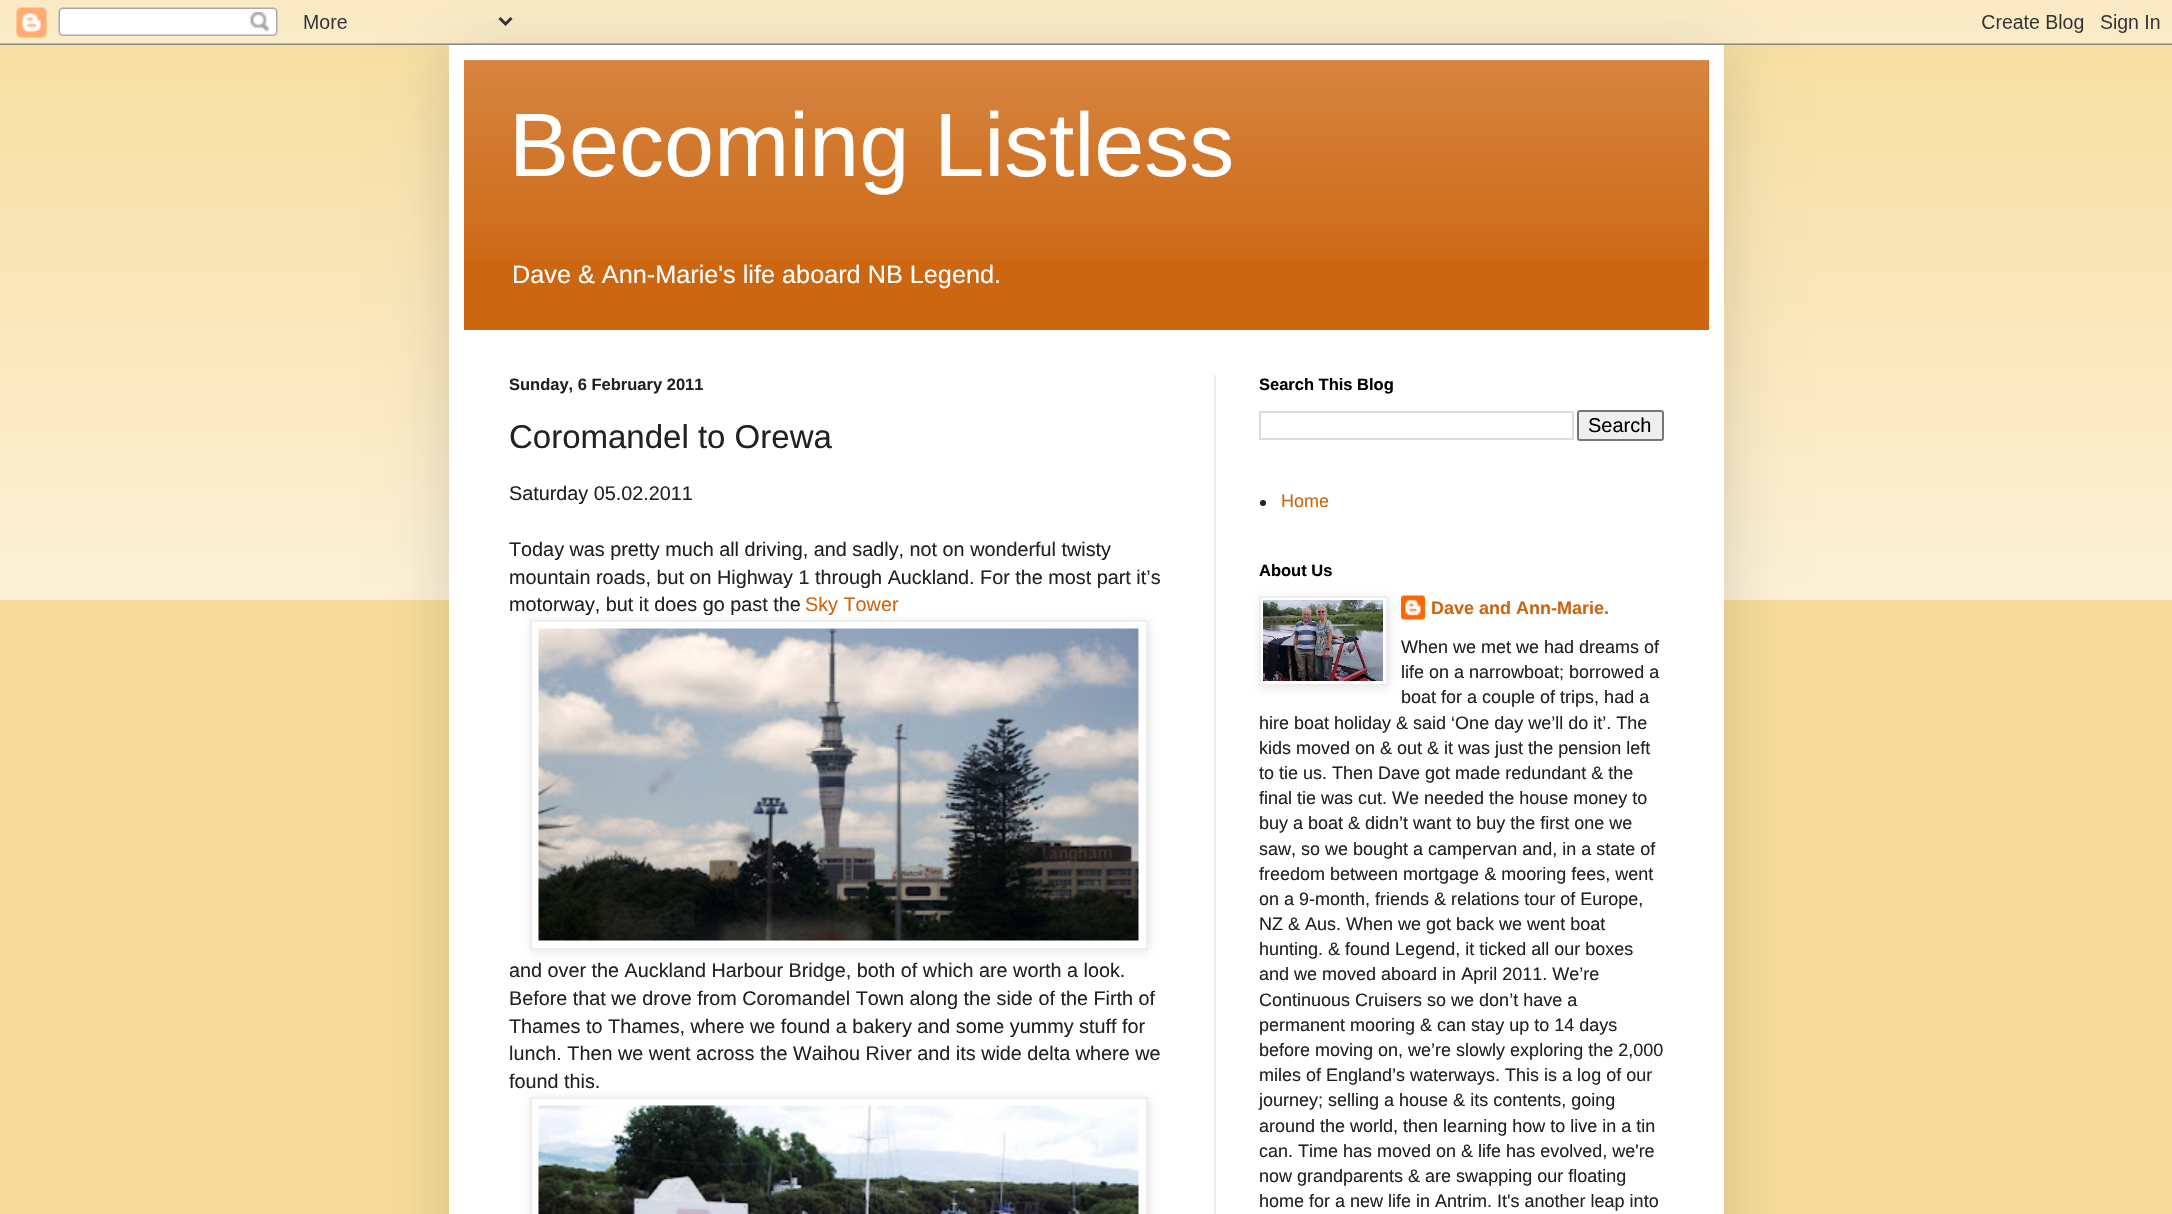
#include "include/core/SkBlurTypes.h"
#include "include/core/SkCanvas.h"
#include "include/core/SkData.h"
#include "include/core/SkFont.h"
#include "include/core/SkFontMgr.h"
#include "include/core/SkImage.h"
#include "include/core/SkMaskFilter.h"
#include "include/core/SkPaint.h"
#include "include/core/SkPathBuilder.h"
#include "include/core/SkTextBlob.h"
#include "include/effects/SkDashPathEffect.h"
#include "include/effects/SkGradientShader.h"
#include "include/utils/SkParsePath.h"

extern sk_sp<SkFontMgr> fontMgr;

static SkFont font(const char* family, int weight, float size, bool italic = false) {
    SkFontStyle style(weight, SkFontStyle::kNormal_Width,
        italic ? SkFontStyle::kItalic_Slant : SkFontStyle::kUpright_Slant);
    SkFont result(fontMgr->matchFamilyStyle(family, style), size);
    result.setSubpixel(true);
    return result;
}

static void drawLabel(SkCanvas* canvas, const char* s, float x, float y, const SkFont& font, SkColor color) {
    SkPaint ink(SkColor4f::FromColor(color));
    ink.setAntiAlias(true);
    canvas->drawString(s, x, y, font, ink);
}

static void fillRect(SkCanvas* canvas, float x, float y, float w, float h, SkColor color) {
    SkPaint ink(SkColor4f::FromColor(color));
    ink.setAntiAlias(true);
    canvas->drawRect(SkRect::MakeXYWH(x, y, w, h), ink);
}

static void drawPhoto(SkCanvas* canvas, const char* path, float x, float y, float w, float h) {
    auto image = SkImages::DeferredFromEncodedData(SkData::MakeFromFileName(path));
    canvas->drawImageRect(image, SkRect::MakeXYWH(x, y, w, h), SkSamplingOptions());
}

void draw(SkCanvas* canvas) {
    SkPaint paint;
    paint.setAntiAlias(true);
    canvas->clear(0xFFF7DC99);
    drawPhoto(canvas, "assets/img1.png", 0, 0, 2172, 600);
    paint.setColor(0x26000000);
    paint.setMaskFilter(SkMaskFilter::MakeBlur(kNormal_SkBlurStyle, 30));
    canvas->drawRect(SkRect::MakeXYWH(449, 45, 1275, 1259), paint);
    paint.setMaskFilter(nullptr);
    drawPhoto(canvas, "assets/img2.png", 0, 0, 2172, 45);
    fillRect(canvas, 449, 45, 1275, 1169, 0xFFFFFFFF);
    fillRect(canvas, 464, 60, 1245, 270, 0xFFCC6611);
    drawPhoto(canvas, "assets/img3.png", 464, 60, 1245, 199);
    SkFont font1 = font("Liberation Sans", 400, 90);
    drawLabel(canvas, "Becoming Listless", 509, 176, font1, 0xFFFFFFFF);
    SkFont font2 = font("Liberation Sans", 400, 25.25f);
    drawLabel(canvas, "Dave & Ann-Marie's life aboard NB Legend.", 512, 283, font2, 0xFFFFFFFF);
    fillRect(canvas, 1214, 375, 2, 839, 0xFFEEEEEE);
    SkFont font3 = font("Liberation Sans", 700, 16.5f);
    drawLabel(canvas, "Sunday, 6 February 2011", 509, 390, font3, 0xFF222222);
    SkFont font4 = font("Liberation Sans", 400, 33);
    drawLabel(canvas, "Coromandel to Orewa", 509, 448, font4, 0xFF222222);
    SkFont font5 = font("Liberation Sans", 400, 19.8f);
    drawLabel(canvas, "Saturday 05.02.2011", 509, 500, font5, 0xFF222222);
    drawLabel(canvas, "Today was pretty much all driving, and sadly, not on wonderful twisty", 509, 556, font5, 0xFF222222);
    drawLabel(canvas, "mountain roads, but on Highway 1 through Auckland. For the most part it’s", 509, 584, font5, 0xFF222222);
    drawLabel(canvas, "motorway, but it does go past the", 509, 611, font5, 0xFF222222);
    drawLabel(canvas, "Sky Tower", 805, 611, font5, 0xFFCC6611);
    paint.setColor(0x1A000000);
    paint.setMaskFilter(SkMaskFilter::MakeBlur(kNormal_SkBlurStyle, 4));
    canvas->drawRect(SkRect::MakeXYWH(531, 621, 618, 330), paint);
    paint.setMaskFilter(nullptr);
    paint.setColor(0xFFFFFFFF);
    canvas->drawRect(SkRect::MakeXYWH(531, 621, 616, 328), paint);
    paint.setStroke(true);
    paint.setStrokeWidth(2);
    paint.setColor(0xFFEEEEEE);
    canvas->drawRect(SkRect::MakeXYWH(531, 621, 616, 328), paint);
    drawPhoto(canvas, "assets/img4.png", 538, 628, 601, 313);
    drawLabel(canvas, "and over the Auckland Harbour Bridge, both of which are worth a look.", 509, 977, font5, 0xFF222222);
    drawLabel(canvas, "Before that we drove from Coromandel Town along the side of the Firth of", 509, 1005, font5, 0xFF222222);
    drawLabel(canvas, "Thames to Thames, where we found a bakery and some yummy stuff for", 509, 1033, font5, 0xFF222222);
    drawLabel(canvas, "lunch. Then we went across the Waihou River and its wide delta where we", 509, 1060, font5, 0xFF222222);
    drawLabel(canvas, "found this.", 509, 1088, font5, 0xFF222222);
    paint.setStroke(false);
    paint.setColor(0x1A000000);
    paint.setMaskFilter(SkMaskFilter::MakeBlur(kNormal_SkBlurStyle, 4));
    canvas->drawRect(SkRect::MakeXYWH(531, 1098, 618, 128), paint);
    paint.setMaskFilter(nullptr);
    paint.setColor(0xFFFFFFFF);
    canvas->drawRect(SkRect::MakeXYWH(531, 1098, 616, 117), paint);
    paint.setStroke(true);
    paint.setColor(0xFFEEEEEE);
    canvas->drawRect(SkRect::MakeXYWH(531, 1098, 616, 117), paint);
    drawPhoto(canvas, "assets/img5.png", 538, 1105, 601, 109);
    drawLabel(canvas, "Search This Blog", 1259, 390, font3, 0xFF000000);
    paint.setColor(0xFFDDDDDD);
    canvas->drawRect(SkRect::MakeXYWH(1260, 412, 313, 27), paint);
    paint.setStroke(false);
    paint.setColor(0xFFEFEFEF);
    canvas->drawRoundRect(SkRect::MakeXYWH(1578, 411, 85, 29), 2, 2, paint);
    paint.setStroke(true);
    paint.setColor(0xFF767676);
    canvas->drawRoundRect(SkRect::MakeXYWH(1578, 411, 85, 29), 2, 2, paint);
    SkFont font6 = font("Liberation Sans", 400, 20);
    drawLabel(canvas, "Search", 1588, 432, font6, 0xFF000000);
    paint.setStroke(false);
    paint.setColor(0xFF222222);
    canvas->drawCircle(1263, 503, 3, paint);
    SkFont font7 = font("Liberation Sans", 400, 18);
    drawLabel(canvas, "Home", 1281, 507, font7, 0xFFCC6611);
    drawLabel(canvas, "About Us", 1259, 576, font3, 0xFF000000);
    drawPhoto(canvas, "assets/img7.png", 1401, 595, 24, 25);
    paint.setColor(0x1A000000);
    paint.setMaskFilter(SkMaskFilter::MakeBlur(kNormal_SkBlurStyle, 4));
    canvas->drawRect(SkRect::MakeXYWH(1260, 597, 129, 90), paint);
    paint.setMaskFilter(nullptr);
    paint.setColor(0xFFFFFFFF);
    canvas->drawRect(SkRect::MakeXYWH(1260, 597, 127, 88), paint);
    paint.setStroke(true);
    paint.setColor(0xFFEEEEEE);
    canvas->drawRect(SkRect::MakeXYWH(1260, 597, 127, 88), paint);
    drawPhoto(canvas, "assets/img6.png", 1263, 600, 120, 81);
    SkFont font8 = font("Liberation Sans", 700, 18);
    drawLabel(canvas, "Dave and Ann-Marie.", 1431, 614, font8, 0xFFCC6611);
    drawLabel(canvas, "When we met we had dreams of", 1401, 653, font7, 0xFF222222);
    drawLabel(canvas, "life on a narrowboat; borrowed a", 1401, 678, font7, 0xFF222222);
    drawLabel(canvas, "boat for a couple of trips, had a", 1401, 703, font7, 0xFF222222);
    drawLabel(canvas, "hire boat holiday & said ‘One day we’ll do it’. The", 1259, 729, font7, 0xFF222222);
    drawLabel(canvas, "kids moved on & out & it was just the pension left", 1259, 754, font7, 0xFF222222);
    drawLabel(canvas, "to tie us. Then Dave got made redundant & the", 1259, 779, font7, 0xFF222222);
    drawLabel(canvas, "final tie was cut. We needed the house money to", 1259, 804, font7, 0xFF222222);
    drawLabel(canvas, "buy a boat & didn’t want to buy the first one we", 1259, 829, font7, 0xFF222222);
    drawLabel(canvas, "saw, so we bought a campervan and, in a state of", 1259, 855, font7, 0xFF222222);
    drawLabel(canvas, "freedom between mortgage & mooring fees, went", 1259, 880, font7, 0xFF222222);
    drawLabel(canvas, "on a 9-month, friends & relations tour of Europe,", 1259, 905, font7, 0xFF222222);
    drawLabel(canvas, "NZ & Aus. When we got back we went boat", 1259, 930, font7, 0xFF222222);
    drawLabel(canvas, "hunting. & found Legend, it ticked all our boxes", 1259, 955, font7, 0xFF222222);
    drawLabel(canvas, "and we moved aboard in April 2011. We’re", 1259, 980, font7, 0xFF222222);
    drawLabel(canvas, "Continuous Cruisers so we don’t have a", 1259, 1006, font7, 0xFF222222);
    drawLabel(canvas, "permanent mooring & can stay up to 14 days", 1259, 1031, font7, 0xFF222222);
    drawLabel(canvas, "before moving on, we’re slowly exploring the 2,000", 1259, 1056, font7, 0xFF222222);
    drawLabel(canvas, "miles of England’s waterways. This is a log of our", 1259, 1081, font7, 0xFF222222);
    drawLabel(canvas, "journey; selling a house & its contents, going", 1259, 1106, font7, 0xFF222222);
    drawLabel(canvas, "around the world, then learning how to live in a tin", 1259, 1132, font7, 0xFF222222);
    drawLabel(canvas, "can. Time has moved on & life has evolved, we're", 1259, 1157, font7, 0xFF222222);
    drawLabel(canvas, "now grandparents & are swapping our floating", 1259, 1182, font7, 0xFF222222);
    drawLabel(canvas, "home for a new life in Antrim. It's another leap into", 1259, 1207, font7, 0xFF222222);
}
